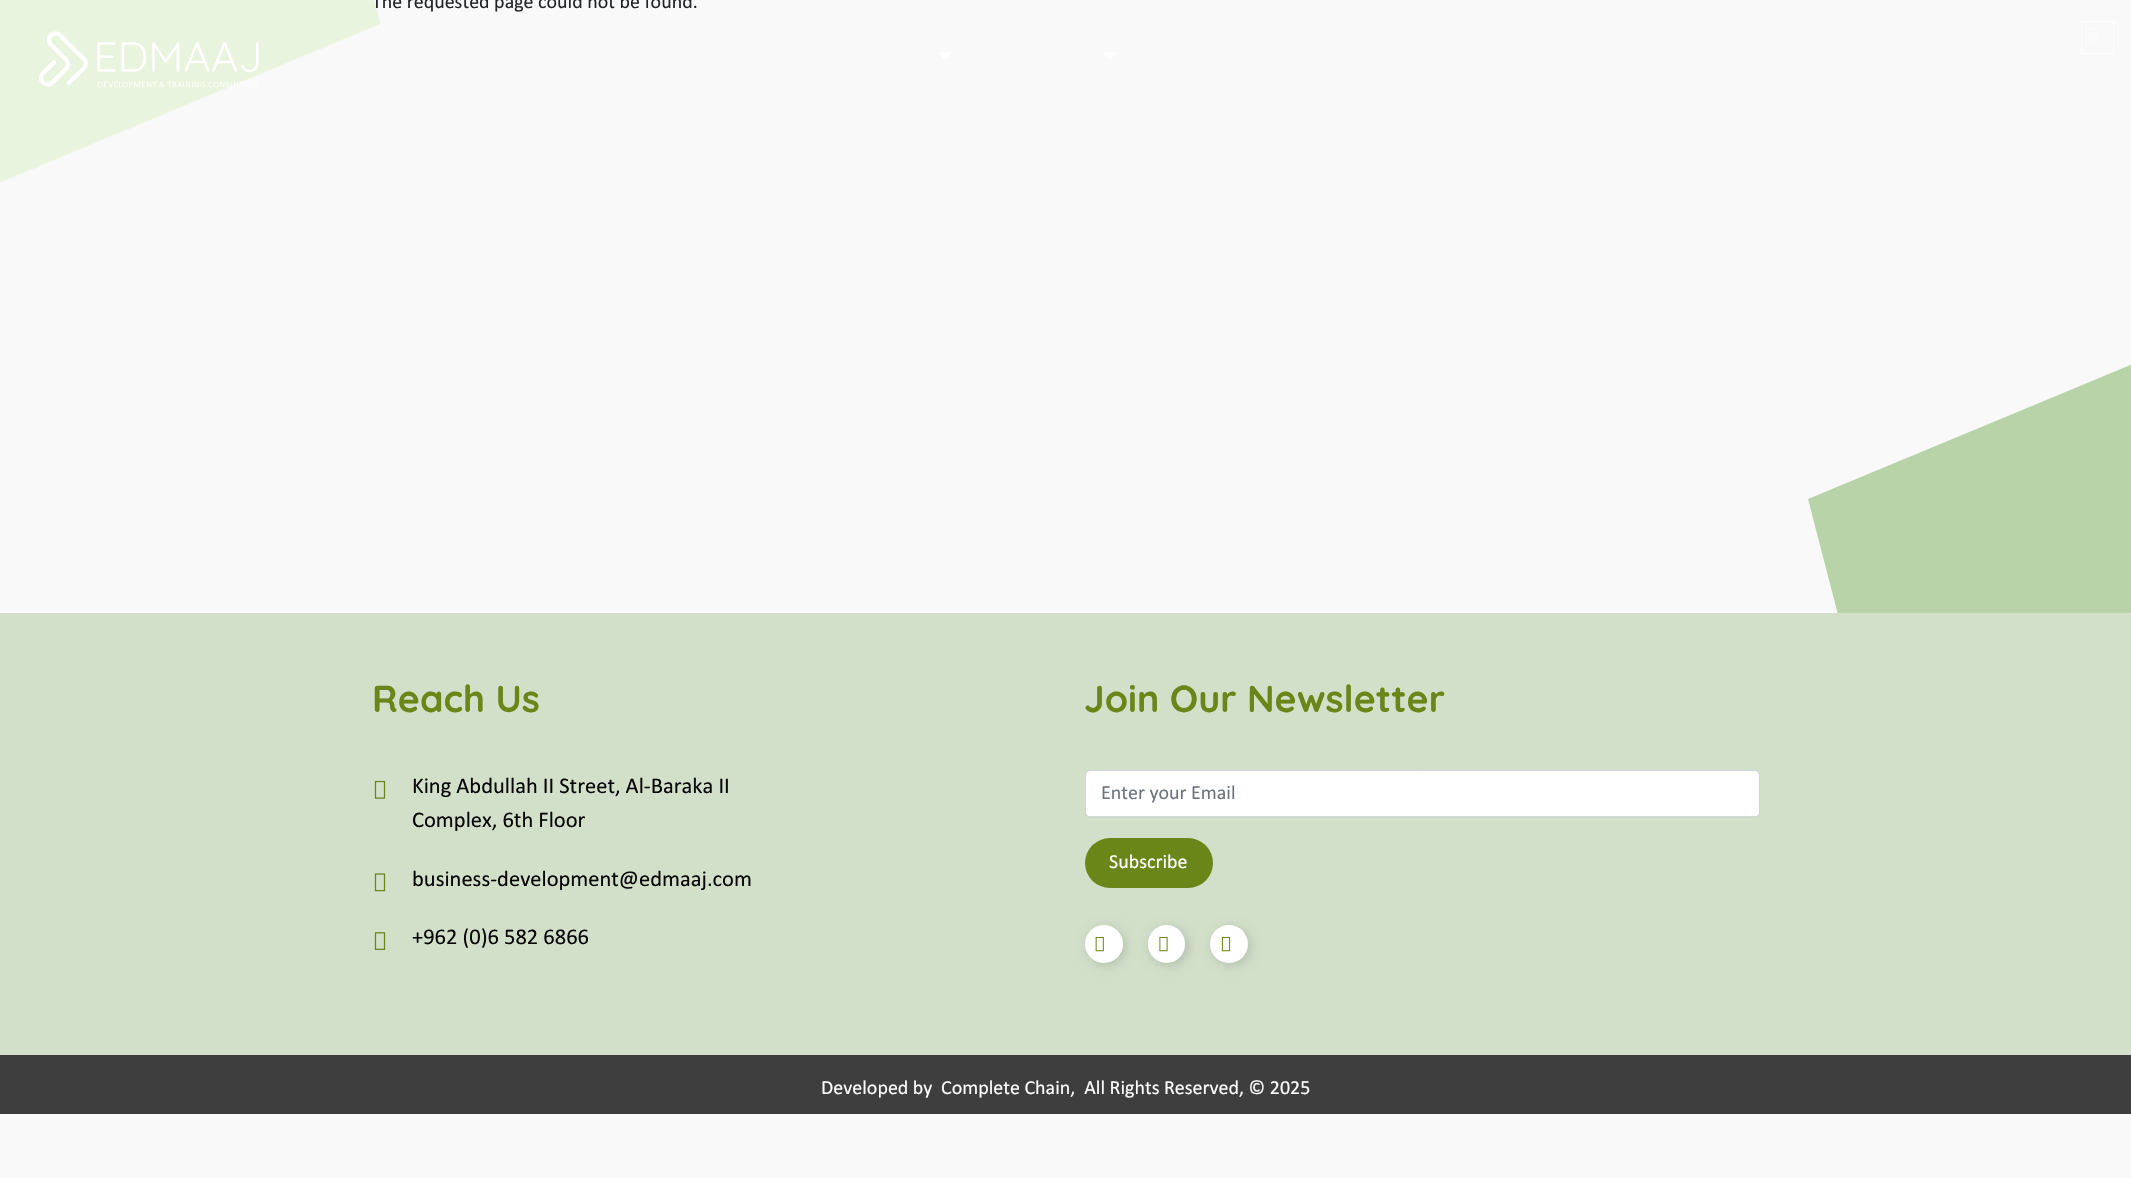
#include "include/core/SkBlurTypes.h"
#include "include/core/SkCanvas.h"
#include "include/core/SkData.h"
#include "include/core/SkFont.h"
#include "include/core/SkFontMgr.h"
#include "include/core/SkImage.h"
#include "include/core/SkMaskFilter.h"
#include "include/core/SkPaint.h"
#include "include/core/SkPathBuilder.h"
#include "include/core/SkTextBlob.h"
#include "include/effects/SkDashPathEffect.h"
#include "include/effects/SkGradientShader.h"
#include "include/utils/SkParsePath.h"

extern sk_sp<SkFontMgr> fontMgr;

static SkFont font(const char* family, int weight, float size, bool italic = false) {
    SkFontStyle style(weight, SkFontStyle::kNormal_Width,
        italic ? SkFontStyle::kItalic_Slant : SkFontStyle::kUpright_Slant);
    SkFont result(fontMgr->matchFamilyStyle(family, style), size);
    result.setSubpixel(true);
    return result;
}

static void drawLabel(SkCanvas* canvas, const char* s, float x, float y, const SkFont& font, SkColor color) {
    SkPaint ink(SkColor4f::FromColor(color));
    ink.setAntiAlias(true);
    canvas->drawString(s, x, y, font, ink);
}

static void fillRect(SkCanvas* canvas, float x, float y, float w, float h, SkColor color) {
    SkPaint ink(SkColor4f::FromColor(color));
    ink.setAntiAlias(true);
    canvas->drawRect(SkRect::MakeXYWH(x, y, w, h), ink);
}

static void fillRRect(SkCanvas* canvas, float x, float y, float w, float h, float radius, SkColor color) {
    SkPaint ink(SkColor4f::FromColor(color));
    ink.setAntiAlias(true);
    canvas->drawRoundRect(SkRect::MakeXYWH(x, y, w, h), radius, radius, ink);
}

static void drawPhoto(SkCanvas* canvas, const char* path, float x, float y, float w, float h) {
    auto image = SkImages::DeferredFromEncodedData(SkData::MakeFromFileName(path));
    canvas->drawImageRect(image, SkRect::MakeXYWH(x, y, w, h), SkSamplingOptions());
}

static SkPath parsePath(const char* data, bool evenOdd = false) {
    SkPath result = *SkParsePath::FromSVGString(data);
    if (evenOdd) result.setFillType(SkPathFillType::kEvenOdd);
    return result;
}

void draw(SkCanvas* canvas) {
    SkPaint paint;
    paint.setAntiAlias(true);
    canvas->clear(0xFFF9F9F9);
    drawPhoto(canvas, "assets/img1.png", 0, 0, 380, 183);
    paint.setColor(0xFFB9D3A8);
    canvas->drawPath(parsePath("M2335 387L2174 347L1808 499L1914 908L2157 969L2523 818L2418 408Z"), paint);
    SkFont font1 = font("Calibri", 400, 20);
    drawLabel(canvas, "The requested page could not be found.", 372, 8, font1, 0xFF212529);
    drawPhoto(canvas, "assets/img2.png", 39, 31, 220, 57);
    paint.setColor(0xFFFFFFFF);
    canvas->drawPath(parsePath("M937.5 52.5H952.5L945 60Z"), paint);
    canvas->drawPath(parsePath("M1102.5 52.5H1117.5L1110 60Z"), paint);
    paint.setStroke(true);
    paint.setStrokeWidth(1);
    canvas->drawRect(SkRect::MakeXYWH(2081.5f, 21.5f, 32, 32), paint);
    drawPhoto(canvas, "assets/img3.png", 2090, 28, 7, 14);
    fillRect(canvas, 0, 613, 2131, 442, 0xFFD2E0CA);
    SkFont font2 = font("Quicksand", 700, 37.5f);
    drawLabel(canvas, "Reach Us", 372, 712, font2, 0xFF6A8618);
    drawPhoto(canvas, "assets/img4.png", 374, 780, 12, 19);
    SkFont font3 = font("Calibri", 400, 22.5f);
    drawLabel(canvas, "King Abdullah II Street, Al-Baraka II", 412, 793, font3, 0xFF070707);
    drawLabel(canvas, "Complex, 6th Floor", 412, 827, font3, 0xFF070707);
    drawPhoto(canvas, "assets/img5.png", 374, 873, 12, 19);
    drawLabel(canvas, "business-development@edmaaj.com", 412, 886, font3, 0xFF070707);
    drawPhoto(canvas, "assets/img6.png", 374, 932, 12, 18);
    drawLabel(canvas, "+962 (0)6 582 6866", 412, 944, font3, 0xFF070707);
    drawLabel(canvas, "Join Our Newsletter", 1084, 712, font2, 0xFF6A8618);
    fillRRect(canvas, 1086, 771, 673, 45, 4, 0xFFFFFFFF);
    paint.setColor(0xFFCED4DA);
    canvas->drawRoundRect(SkRect::MakeXYWH(1085.5f, 770.5f, 674, 47), 4.5f, 4.5f, paint);
    drawLabel(canvas, "Enter your Email", 1101, 799, font1, 0xFF6C757D);
    fillRRect(canvas, 1085, 838, 128, 50, 25, 0xFF6A8618);
    drawLabel(canvas, "Subscribe", 1109, 868, font1, 0xFFFFFFFF);
    paint.setStroke(false);
    paint.setColor(0x29000000);
    paint.setMaskFilter(SkMaskFilter::MakeBlur(kNormal_SkBlurStyle, 6));
    canvas->drawRoundRect(SkRect::MakeXYWH(1088, 928, 37, 37), 18.5f, 18.5f, paint);
    paint.setMaskFilter(nullptr);
    paint.setColor(0xFFFFFFFF);
    canvas->drawCircle(1104, 944, 19, paint);
    drawPhoto(canvas, "assets/img7.png", 1095, 936, 9, 16);
    paint.setColor(0x29000000);
    paint.setMaskFilter(SkMaskFilter::MakeBlur(kNormal_SkBlurStyle, 6));
    canvas->drawRoundRect(SkRect::MakeXYWH(1150, 928, 38, 37), 18.5f, 18.5f, paint);
    paint.setMaskFilter(nullptr);
    fillRRect(canvas, 1148, 925, 37, 38, 18.5f, 0xFFFFFFFF);
    drawPhoto(canvas, "assets/img8.png", 1159, 936, 9, 16);
    paint.setMaskFilter(SkMaskFilter::MakeBlur(kNormal_SkBlurStyle, 6));
    canvas->drawRoundRect(SkRect::MakeXYWH(1213, 928, 37, 37), 18.5f, 18.5f, paint);
    paint.setMaskFilter(nullptr);
    paint.setColor(0xFFFFFFFF);
    canvas->drawCircle(1229, 944, 19, paint);
    drawPhoto(canvas, "assets/img9.png", 1221, 936, 10, 16);
    fillRect(canvas, 0, 1055, 2131, 59, 0xFF3E3E3E);
    drawLabel(canvas, "Developed by", 821, 1094, font1, 0xFFFFFFFF);
    drawLabel(canvas, "Complete Chain,  All Rights Reserved, © 2025", 941, 1094, font1, 0xFFFFFFFF);
}
